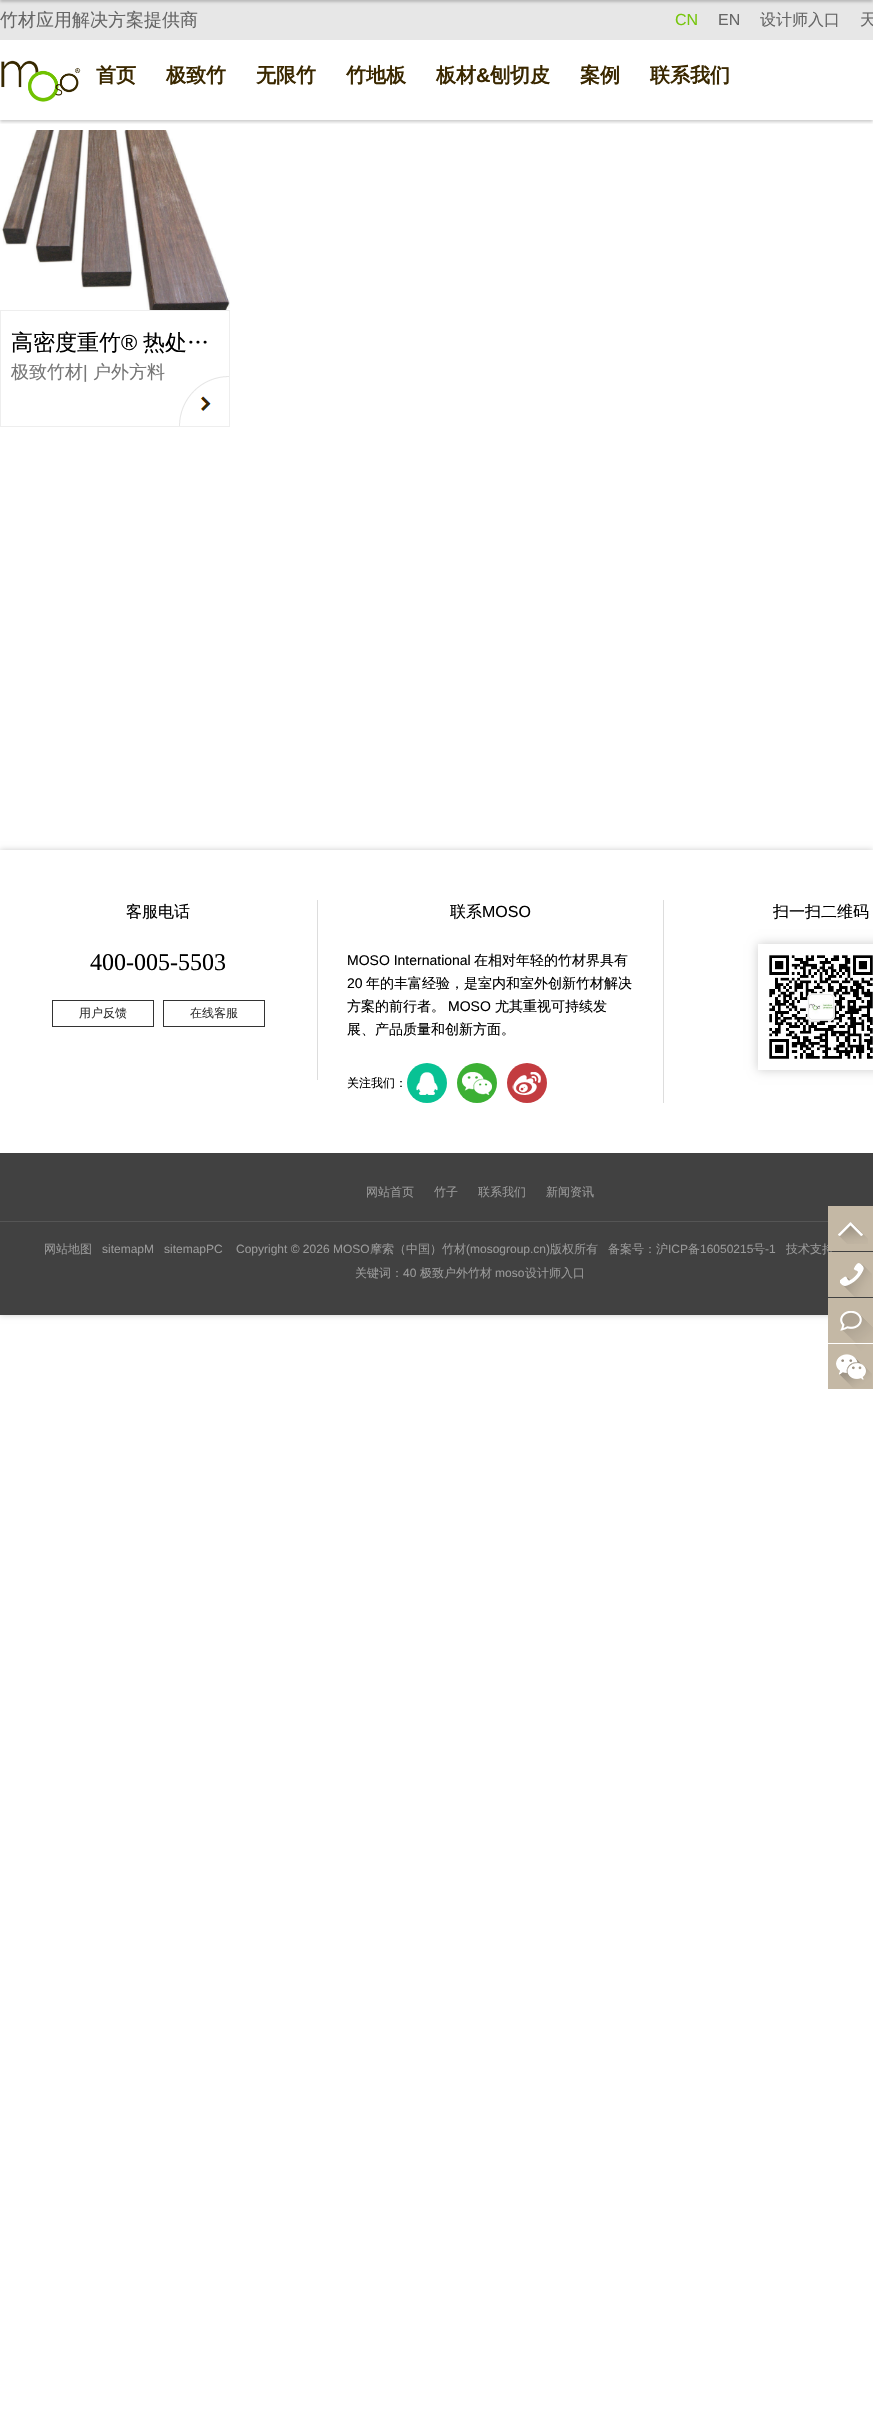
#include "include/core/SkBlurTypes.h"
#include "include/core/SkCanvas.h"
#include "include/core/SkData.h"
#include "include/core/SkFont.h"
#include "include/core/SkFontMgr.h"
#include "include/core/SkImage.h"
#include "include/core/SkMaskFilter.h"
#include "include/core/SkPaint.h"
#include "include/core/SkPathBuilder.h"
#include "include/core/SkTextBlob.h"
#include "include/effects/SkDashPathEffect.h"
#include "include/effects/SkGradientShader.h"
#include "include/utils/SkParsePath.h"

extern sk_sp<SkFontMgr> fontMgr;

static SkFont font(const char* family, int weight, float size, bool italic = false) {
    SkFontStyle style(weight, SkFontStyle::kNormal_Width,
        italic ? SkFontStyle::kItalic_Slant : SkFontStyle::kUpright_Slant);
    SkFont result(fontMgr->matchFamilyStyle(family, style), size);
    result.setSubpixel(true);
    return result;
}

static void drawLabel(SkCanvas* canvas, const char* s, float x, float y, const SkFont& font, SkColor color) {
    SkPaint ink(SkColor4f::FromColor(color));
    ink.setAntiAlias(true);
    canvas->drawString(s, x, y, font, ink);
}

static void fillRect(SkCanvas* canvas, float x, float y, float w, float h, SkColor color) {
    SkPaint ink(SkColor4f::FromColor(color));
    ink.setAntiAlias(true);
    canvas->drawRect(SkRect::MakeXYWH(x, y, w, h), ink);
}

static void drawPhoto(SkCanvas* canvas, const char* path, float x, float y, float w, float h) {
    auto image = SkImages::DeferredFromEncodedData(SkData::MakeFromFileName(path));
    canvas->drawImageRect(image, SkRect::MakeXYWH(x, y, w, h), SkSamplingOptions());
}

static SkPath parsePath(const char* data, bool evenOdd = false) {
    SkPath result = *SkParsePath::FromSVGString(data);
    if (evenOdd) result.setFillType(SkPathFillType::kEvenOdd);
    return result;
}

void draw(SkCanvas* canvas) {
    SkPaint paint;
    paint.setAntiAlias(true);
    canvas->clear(0xFFFFFFFF);
    fillRect(canvas, 0, 0, 873, 40, 0xFFE7E7E7);
    paint.setColor(0x33000000);
    paint.setMaskFilter(SkMaskFilter::MakeBlur(kNormal_SkBlurStyle, 1.5f));
    canvas->drawRect(SkRect::MakeXYWH(0, -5, 873, 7), paint);
    paint.setMaskFilter(nullptr);
    SkFont font1 = font("WenQuanYi Zen Hei", 500, 18);
    drawLabel(canvas, "竹材应用解决方案提供商", 0, 26, font1, 0xFF666666);
    SkFont font2 = font("Liberation Sans", 400, 16);
    drawLabel(canvas, "CN", 675, 25, font2, 0xFF77C60E);
    drawLabel(canvas, "EN", 718, 25, font2, 0xFF666666);
    SkFont font3 = font("WenQuanYi Zen Hei", 500, 16);
    drawLabel(canvas, "设计师入口", 760, 25, font3, 0xFF666666);
    drawLabel(canvas, "天", 860, 25, font3, 0xFF666666);
    canvas->save();
    canvas->clipRect(SkRect::MakeXYWH(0, 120, 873, 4));
    paint.setMaskFilter(SkMaskFilter::MakeBlur(kNormal_SkBlurStyle, 1.5f));
    canvas->drawRect(SkRect::MakeXYWH(0, 42, 873, 80), paint);
    paint.setMaskFilter(nullptr);
    canvas->restore();
    drawPhoto(canvas, "assets/img1.png", 1, 60, 80, 42);
    SkFont font4 = font("WenQuanYi Zen Hei", 700, 20);
    drawLabel(canvas, "首页", 96, 82, font4, 0xFF3A2800);
    drawLabel(canvas, "极致竹", 166, 82, font4, 0xFF3A2800);
    drawLabel(canvas, "无限竹", 256, 82, font4, 0xFF3A2800);
    drawLabel(canvas, "竹地板", 346, 82, font4, 0xFF3A2800);
    drawLabel(canvas, "板材", 436, 82, font4, 0xFF3A2800);
    SkFont font5 = font("Liberation Sans", 700, 20);
    drawLabel(canvas, "&", 476, 82, font5, 0xFF3A2800);
    drawLabel(canvas, "刨切皮", 490, 82, font4, 0xFF3A2800);
    drawLabel(canvas, "案例", 580, 82, font4, 0xFF3A2800);
    drawLabel(canvas, "联系我们", 650, 82, font4, 0xFF3A2800);
    drawPhoto(canvas, "assets/img2.png", 0, 130, 230, 180);
    paint.setStroke(true);
    paint.setStrokeWidth(1);
    paint.setColor(0xFFEEEEEE);
    canvas->drawRect(SkRect::MakeXYWH(0.5f, 310.5f, 229, 116), paint);
    SkFont font6 = font("WenQuanYi Zen Hei", 500, 22);
    drawLabel(canvas, "高密度重竹", 11, 350, font6, 0xFF000000);
    SkFont font7 = font("Liberation Sans", 400, 22);
    drawLabel(canvas, "®", 121, 350, font7, 0xFF000000);
    drawLabel(canvas, "热处…", 143, 350, font6, 0xFF000000);
    drawLabel(canvas, "极致竹材", 11, 378, font1, 0xFF777777);
    SkFont font8 = font("Liberation Sans", 400, 18);
    drawLabel(canvas, "|", 83, 378, font8, 0xFF777777);
    drawLabel(canvas, "户外方料", 93, 378, font1, 0xFF777777);
    drawPhoto(canvas, "assets/img3.png", 179, 376, 50, 50);
    canvas->save();
    canvas->clipPath(parsePath("M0 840H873V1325H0ZM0 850H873V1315H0Z", true), true);
    paint.setStroke(false);
    paint.setColor(0xFFCCCCCC);
    paint.setMaskFilter(SkMaskFilter::MakeBlur(kNormal_SkBlurStyle, 3));
    canvas->drawRect(SkRect::MakeXYWH(0, 850, 873, 465), paint);
    paint.setMaskFilter(nullptr);
    canvas->restore();
    fillRect(canvas, 317, 900, 1, 180, 0xFFDDDDDD);
    drawLabel(canvas, "客服电话", 126, 917, font3, 0xFF000000);
    SkFont font9 = font("Liberation Serif", 400, 24);
    drawLabel(canvas, "400-005-5503", 90, 970, font9, 0xFF000000);
    paint.setStroke(true);
    paint.setColor(0xFF333333);
    canvas->drawRect(SkRect::MakeXYWH(52.5f, 1000.5f, 101, 26), paint);
    SkFont font10 = font("WenQuanYi Zen Hei", 500, 12);
    drawLabel(canvas, "用户反馈", 79, 1017, font10, 0xFF333333);
    canvas->drawRect(SkRect::MakeXYWH(163.5f, 1000.5f, 101, 26), paint);
    drawLabel(canvas, "在线客服", 190, 1017, font10, 0xFF333333);
    fillRect(canvas, 663, 900, 1, 203, 0xFFDDDDDD);
    drawLabel(canvas, "联系", 450, 917, font3, 0xFF000000);
    drawLabel(canvas, "MOSO", 482, 917, font2, 0xFF000000);
    SkFont font11 = font("Liberation Sans", 400, 14);
    drawLabel(canvas, "MOSO International", 347, 965, font11, 0xFF000000);
    SkFont font12 = font("WenQuanYi Zen Hei", 500, 14);
    drawLabel(canvas, "在相对年轻的竹材界具有", 474, 965, font12, 0xFF000000);
    drawLabel(canvas, "20", 347, 988, font11, 0xFF000000);
    drawLabel(canvas, "年的丰富经验，是室内和室外创新竹材解决", 366, 988, font12, 0xFF000000);
    drawLabel(canvas, "方案的前行者。", 347, 1011, font12, 0xFF000000);
    drawLabel(canvas, "MOSO", 448, 1011, font11, 0xFF000000);
    drawLabel(canvas, "尤其重视可持续发", 495, 1011, font12, 0xFF000000);
    drawLabel(canvas, "展、产品质量和创新方面。", 347, 1034, font12, 0xFF000000);
    drawLabel(canvas, "关注我们：", 347, 1087, font10, 0xFF000000);
    paint.setStroke(false);
    paint.setColor(0xFF08C294);
    canvas->drawCircle(427, 1083, 20, paint);
    drawPhoto(canvas, "assets/img4.png", 416, 1072, 22, 23);
    paint.setColor(0xFF3CB034);
    canvas->drawCircle(477, 1083, 20, paint);
    drawPhoto(canvas, "assets/img5.png", 462, 1072, 30, 23);
    paint.setColor(0xFFC33C40);
    canvas->drawCircle(527, 1083, 20, paint);
    drawPhoto(canvas, "assets/img6.png", 512, 1072, 29, 23);
    drawLabel(canvas, "扫一扫二维码", 773, 917, font3, 0xFF000000);
    canvas->save();
    canvas->clipPath(parsePath("M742 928H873V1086H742ZM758 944H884V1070H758Z", true), true);
    paint.setColor(0xFFCCCCCC);
    paint.setMaskFilter(SkMaskFilter::MakeBlur(kNormal_SkBlurStyle, 5));
    canvas->drawRect(SkRect::MakeXYWH(758, 944, 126, 126), paint);
    paint.setMaskFilter(nullptr);
    canvas->restore();
    drawPhoto(canvas, "assets/img7.png", 769, 954, 104, 105);
    fillRect(canvas, 0, 1153, 873, 162, 0xFF414141);
    drawLabel(canvas, "网站首页", 366, 1196, font10, 0xFF999999);
    drawLabel(canvas, "竹子", 434, 1196, font10, 0xFF999999);
    drawLabel(canvas, "联系我们", 478, 1196, font10, 0xFF999999);
    drawLabel(canvas, "新闻资讯", 546, 1196, font10, 0xFF999999);
    fillRect(canvas, 0, 1221, 828, 1, 0xFF555555);
    drawLabel(canvas, "网站地图", 44, 1253, font10, 0xFF999999);
    SkFont font13 = font("Liberation Sans", 400, 12);
    drawLabel(canvas, "sitemapM", 102, 1253, font13, 0xFF999999);
    drawLabel(canvas, "sitemapPC", 164, 1253, font13, 0xFF999999);
    drawLabel(canvas, "Copyright © 2026 MOSO", 236, 1253, font13, 0xFF999999);
    drawLabel(canvas, "摩索（中国）竹材", 370, 1253, font10, 0xFF999999);
    drawLabel(canvas, "(mosogroup.cn)", 466, 1253, font13, 0xFF999999);
    drawLabel(canvas, "版权所有", 550, 1253, font10, 0xFF999999);
    drawLabel(canvas, "备案号：沪", 608, 1253, font10, 0xFF999999);
    drawLabel(canvas, "ICP", 668, 1253, font13, 0xFF999999);
    drawLabel(canvas, "备", 688, 1253, font10, 0xFF999999);
    drawLabel(canvas, "16050215", 700, 1253, font13, 0xFF999999);
    drawLabel(canvas, "号", 753, 1253, font10, 0xFF999999);
    drawLabel(canvas, "-1", 765, 1253, font13, 0xFF999999);
    drawLabel(canvas, "技术支持", 786, 1253, font10, 0xFF999999);
    drawLabel(canvas, "关键词：", 355, 1277, font10, 0xFF999999);
    drawLabel(canvas, "40", 403, 1277, font13, 0xFF999999);
    drawLabel(canvas, "极致户外竹材", 420, 1277, font10, 0xFF999999);
    drawLabel(canvas, "moso", 495, 1277, font13, 0xFF999999);
    drawLabel(canvas, "设计师入口", 525, 1277, font10, 0xFF999999);
    fillRect(canvas, 828, 1206, 45, 45, 0xFFC4B8A5);
    drawPhoto(canvas, "assets/img8.png", 838, 1222, 30, 22);
    fillRect(canvas, 828, 1252, 45, 45, 0xFFC4B8A5);
    drawPhoto(canvas, "assets/img9.png", 840, 1263, 32, 34);
    fillRect(canvas, 828, 1298, 45, 45, 0xFFC4B8A5);
    drawPhoto(canvas, "assets/img10.png", 840, 1311, 33, 32);
    fillRect(canvas, 828, 1344, 45, 45, 0xFFC4B8A5);
    drawPhoto(canvas, "assets/img11.png", 836, 1344, 36, 44);
}
